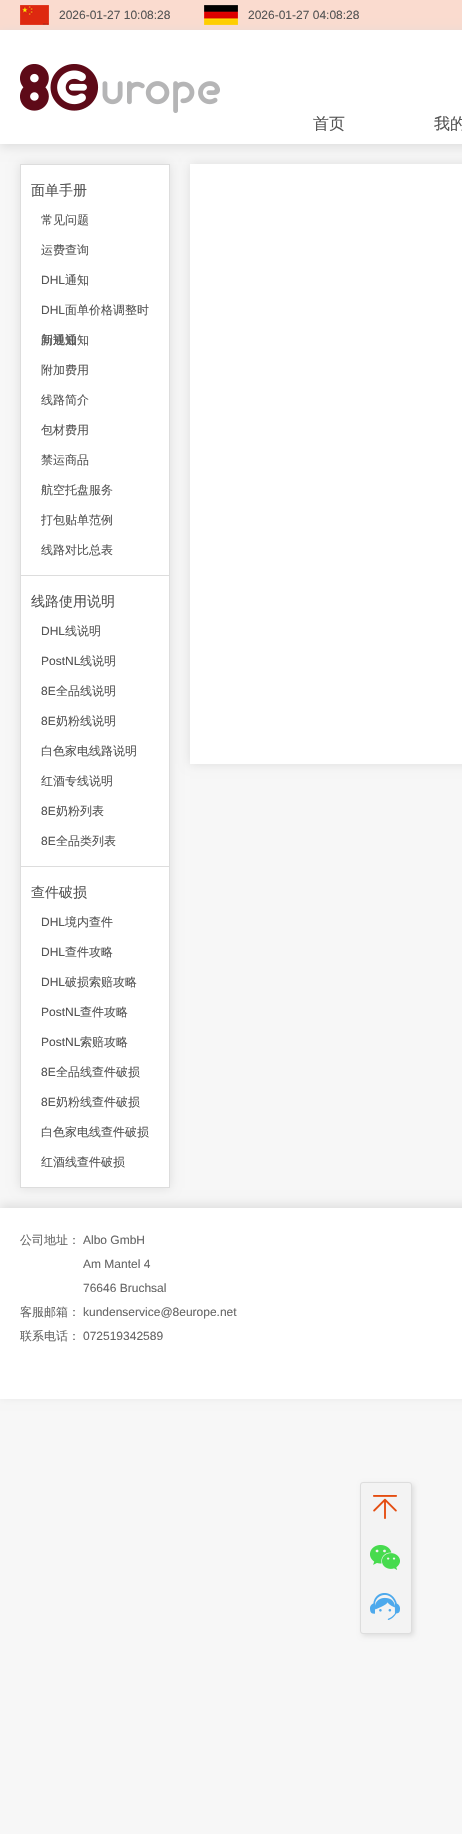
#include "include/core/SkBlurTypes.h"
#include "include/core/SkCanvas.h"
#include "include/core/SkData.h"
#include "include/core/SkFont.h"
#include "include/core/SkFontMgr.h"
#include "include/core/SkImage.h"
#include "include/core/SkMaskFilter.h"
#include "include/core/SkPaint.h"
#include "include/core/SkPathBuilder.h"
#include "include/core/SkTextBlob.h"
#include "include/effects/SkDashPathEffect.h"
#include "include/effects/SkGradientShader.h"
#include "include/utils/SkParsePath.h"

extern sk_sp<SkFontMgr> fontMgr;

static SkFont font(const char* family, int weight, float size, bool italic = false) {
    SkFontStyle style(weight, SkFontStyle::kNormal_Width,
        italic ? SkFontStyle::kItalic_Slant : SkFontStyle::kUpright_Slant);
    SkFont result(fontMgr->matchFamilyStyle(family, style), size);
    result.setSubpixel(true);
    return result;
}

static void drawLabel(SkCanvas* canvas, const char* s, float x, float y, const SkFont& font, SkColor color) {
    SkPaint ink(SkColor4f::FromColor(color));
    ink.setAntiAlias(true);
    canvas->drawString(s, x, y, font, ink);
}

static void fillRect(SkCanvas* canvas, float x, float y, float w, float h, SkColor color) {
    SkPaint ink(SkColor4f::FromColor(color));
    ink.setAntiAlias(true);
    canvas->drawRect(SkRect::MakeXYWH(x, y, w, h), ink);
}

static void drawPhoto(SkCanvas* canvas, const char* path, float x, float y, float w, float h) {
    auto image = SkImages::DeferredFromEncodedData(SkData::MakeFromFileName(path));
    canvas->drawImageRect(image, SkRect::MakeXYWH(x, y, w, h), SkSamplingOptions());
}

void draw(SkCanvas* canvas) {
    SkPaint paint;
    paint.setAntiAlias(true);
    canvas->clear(0xFFF7F7F7);
    fillRect(canvas, 0, 0, 462, 30, 0xFFFADBCF);
    paint.setColor(0xFFDDDDDD);
    paint.setMaskFilter(SkMaskFilter::MakeBlur(kNormal_SkBlurStyle, 5));
    canvas->drawRect(SkRect::MakeXYWH(0, 33, 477, 114), paint);
    paint.setMaskFilter(nullptr);
    drawPhoto(canvas, "assets/img1.png", 20, 5, 29, 20);
    SkFont font1 = font("Liberation Sans", 400, 12);
    drawLabel(canvas, "2026-01-27 10:08:28", 59, 19, font1, 0xFF555555);
    drawPhoto(canvas, "assets/img2.png", 204, 5, 34, 20);
    drawLabel(canvas, "2026-01-27 04:08:28", 248, 19, font1, 0xFF555555);
    fillRect(canvas, 0, 30, 462, 114, 0xFFFFFFFF);
    drawPhoto(canvas, "assets/img3.png", 20, 64, 200, 49);
    SkFont font2 = font("WenQuanYi Zen Hei", 500, 16);
    drawLabel(canvas, "首页", 313, 129, font2, 0xFF555555);
    drawLabel(canvas, "我的", 434, 129, font2, 0xFF555555);
    paint.setMaskFilter(SkMaskFilter::MakeBlur(kNormal_SkBlurStyle, 5));
    canvas->drawRect(SkRect::MakeXYWH(20, 164, 150, 1024), paint);
    paint.setMaskFilter(nullptr);
    fillRect(canvas, 21, 165, 148, 410, 0xFFFFFFFF);
    fillRect(canvas, 20, 164, 150, 1, 0xFFDDDDDD);
    fillRect(canvas, 169, 164, 1, 411, 0xFFDDDDDD);
    fillRect(canvas, 20, 164, 1, 411, 0xFFDDDDDD);
    SkFont font3 = font("WenQuanYi Zen Hei", 500, 14);
    drawLabel(canvas, "面单手册", 31, 195, font3, 0xFF555555);
    SkFont font4 = font("WenQuanYi Zen Hei", 500, 12);
    drawLabel(canvas, "常见问题", 41, 224, font4, 0xFF555555);
    drawLabel(canvas, "运费查询", 41, 254, font4, 0xFF555555);
    drawLabel(canvas, "DHL", 41, 284, font1, 0xFF555555);
    drawLabel(canvas, "通知", 65, 284, font4, 0xFF555555);
    drawLabel(canvas, "DHL", 41, 314, font1, 0xFF555555);
    drawLabel(canvas, "面单价格调整时", 65, 314, font4, 0xFF555555);
    drawLabel(canvas, "间通知", 41, 344, font4, 0xFF555555);
    drawLabel(canvas, "新规通知", 41, 344, font4, 0xFF555555);
    drawLabel(canvas, "附加费用", 41, 374, font4, 0xFF555555);
    drawLabel(canvas, "线路简介", 41, 404, font4, 0xFF555555);
    drawLabel(canvas, "包材费用", 41, 434, font4, 0xFF555555);
    drawLabel(canvas, "禁运商品", 41, 464, font4, 0xFF555555);
    drawLabel(canvas, "航空托盘服务", 41, 494, font4, 0xFF555555);
    drawLabel(canvas, "打包贴单范例", 41, 524, font4, 0xFF555555);
    drawLabel(canvas, "线路对比总表", 41, 554, font4, 0xFF555555);
    fillRect(canvas, 21, 576, 148, 290, 0xFFFFFFFF);
    fillRect(canvas, 20, 575, 150, 1, 0xFFDDDDDD);
    fillRect(canvas, 169, 575, 1, 291, 0xFFDDDDDD);
    fillRect(canvas, 20, 575, 1, 291, 0xFFDDDDDD);
    drawLabel(canvas, "线路使用说明", 31, 606, font3, 0xFF555555);
    drawLabel(canvas, "DHL", 41, 635, font1, 0xFF555555);
    drawLabel(canvas, "线说明", 65, 635, font4, 0xFF555555);
    drawLabel(canvas, "PostNL", 41, 665, font1, 0xFF555555);
    drawLabel(canvas, "线说明", 80, 665, font4, 0xFF555555);
    drawLabel(canvas, "8E", 41, 695, font1, 0xFF555555);
    drawLabel(canvas, "全品线说明", 56, 695, font4, 0xFF555555);
    drawLabel(canvas, "8E", 41, 725, font1, 0xFF555555);
    drawLabel(canvas, "奶粉线说明", 56, 725, font4, 0xFF555555);
    drawLabel(canvas, "白色家电线路说明", 41, 755, font4, 0xFF555555);
    drawLabel(canvas, "红酒专线说明", 41, 785, font4, 0xFF555555);
    drawLabel(canvas, "8E", 41, 815, font1, 0xFF555555);
    drawLabel(canvas, "奶粉列表", 56, 815, font4, 0xFF555555);
    drawLabel(canvas, "8E", 41, 845, font1, 0xFF555555);
    drawLabel(canvas, "全品类列表", 56, 845, font4, 0xFF555555);
    paint.setColor(0xFFFFFFFF);
    canvas->drawRect(SkRect::MakeXYWH(20.5f, 866.5f, 149, 321), paint);
    paint.setStroke(true);
    paint.setStrokeWidth(1);
    paint.setColor(0xFFDDDDDD);
    canvas->drawRect(SkRect::MakeXYWH(20.5f, 866.5f, 149, 321), paint);
    drawLabel(canvas, "查件破损", 31, 897, font3, 0xFF555555);
    drawLabel(canvas, "DHL", 41, 926, font1, 0xFF555555);
    drawLabel(canvas, "境内查件", 65, 926, font4, 0xFF555555);
    drawLabel(canvas, "DHL", 41, 956, font1, 0xFF555555);
    drawLabel(canvas, "查件攻略", 65, 956, font4, 0xFF555555);
    drawLabel(canvas, "DHL", 41, 986, font1, 0xFF555555);
    drawLabel(canvas, "破损索赔攻略", 65, 986, font4, 0xFF555555);
    drawLabel(canvas, "PostNL", 41, 1016, font1, 0xFF555555);
    drawLabel(canvas, "查件攻略", 80, 1016, font4, 0xFF555555);
    drawLabel(canvas, "PostNL", 41, 1046, font1, 0xFF555555);
    drawLabel(canvas, "索赔攻略", 80, 1046, font4, 0xFF555555);
    drawLabel(canvas, "8E", 41, 1076, font1, 0xFF555555);
    drawLabel(canvas, "全品线查件破损", 56, 1076, font4, 0xFF555555);
    drawLabel(canvas, "8E", 41, 1106, font1, 0xFF555555);
    drawLabel(canvas, "奶粉线查件破损", 56, 1106, font4, 0xFF555555);
    drawLabel(canvas, "白色家电线查件破损", 41, 1136, font4, 0xFF555555);
    drawLabel(canvas, "红酒线查件破损", 41, 1166, font4, 0xFF555555);
    paint.setStroke(false);
    paint.setMaskFilter(SkMaskFilter::MakeBlur(kNormal_SkBlurStyle, 5));
    canvas->drawRect(SkRect::MakeXYWH(190, 164, 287, 600), paint);
    paint.setMaskFilter(nullptr);
    fillRect(canvas, 190, 164, 272, 600, 0xFFFFFFFF);
    paint.setMaskFilter(SkMaskFilter::MakeBlur(kNormal_SkBlurStyle, 5));
    canvas->drawRect(SkRect::MakeXYWH(0, 1205, 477, 191), paint);
    paint.setMaskFilter(nullptr);
    fillRect(canvas, 0, 1208, 462, 191, 0xFFFFFFFF);
    drawLabel(canvas, "公司地址：", 20, 1244, font4, 0xFF666666);
    drawLabel(canvas, "Albo GmbH", 83, 1244, font1, 0xFF666666);
    drawLabel(canvas, "Am Mantel 4", 83, 1268, font1, 0xFF666666);
    drawLabel(canvas, "76646 Bruchsal", 83, 1292, font1, 0xFF666666);
    drawLabel(canvas, "客服邮箱：", 20, 1316, font4, 0xFF666666);
    drawLabel(canvas, "kundenservice@8europe.net", 83, 1316, font1, 0xFF666666);
    drawLabel(canvas, "联系电话：", 20, 1340, font4, 0xFF666666);
    drawLabel(canvas, "072519342589", 83, 1340, font1, 0xFF666666);
    paint.setMaskFilter(SkMaskFilter::MakeBlur(kNormal_SkBlurStyle, 2.5f));
    canvas->drawRoundRect(SkRect::MakeXYWH(362, 1484, 52, 152), 3, 3, paint);
    paint.setMaskFilter(nullptr);
    paint.setColor(0xFFF3F3F3);
    canvas->drawRoundRect(SkRect::MakeXYWH(360.5f, 1482.5f, 51, 151), 2.5f, 2.5f, paint);
    paint.setStroke(true);
    paint.setColor(0xFFDDDDDD);
    canvas->drawRoundRect(SkRect::MakeXYWH(360.5f, 1482.5f, 51, 151), 2.5f, 2.5f, paint);
    drawPhoto(canvas, "assets/img4.png", 373, 1495, 24, 24);
    drawPhoto(canvas, "assets/img5.png", 370, 1545, 30, 25);
    drawPhoto(canvas, "assets/img6.png", 370, 1593, 30, 27);
}
